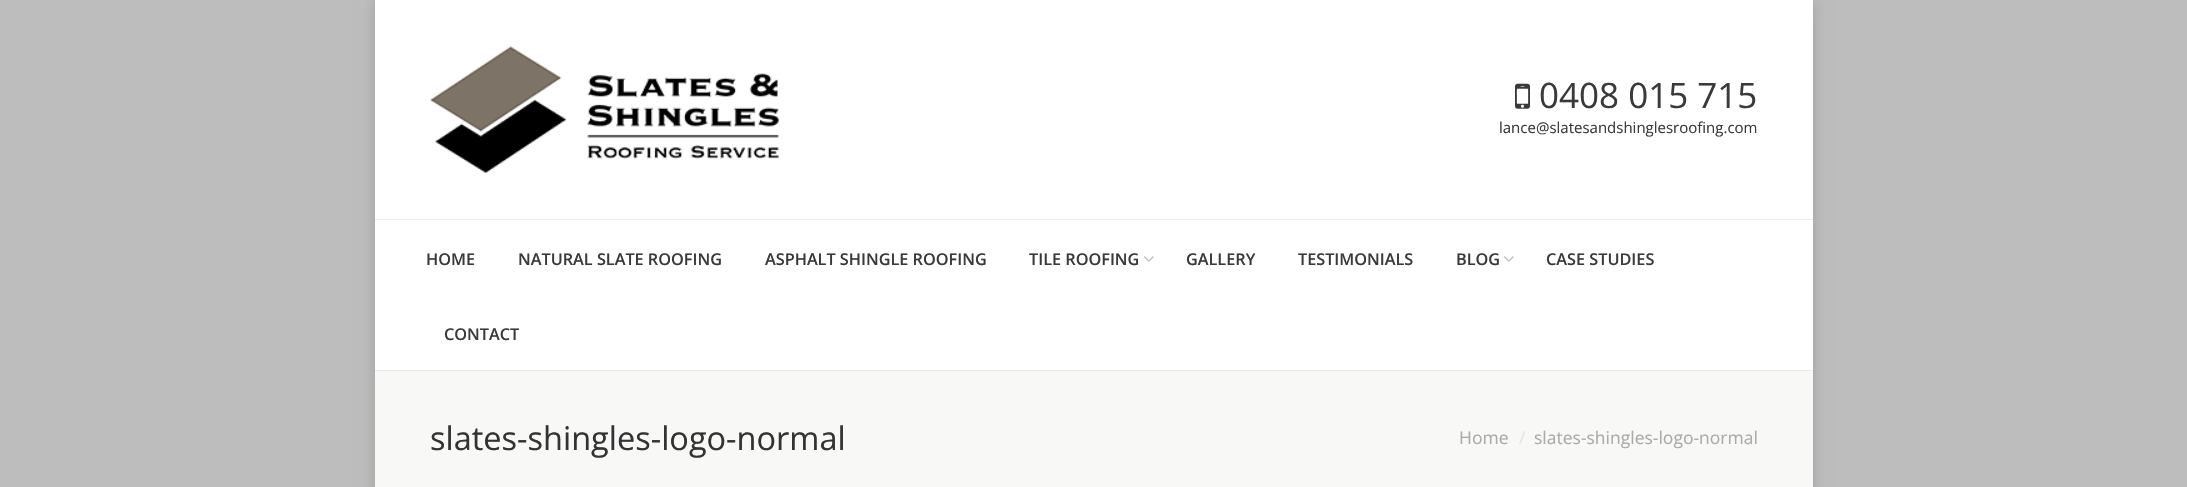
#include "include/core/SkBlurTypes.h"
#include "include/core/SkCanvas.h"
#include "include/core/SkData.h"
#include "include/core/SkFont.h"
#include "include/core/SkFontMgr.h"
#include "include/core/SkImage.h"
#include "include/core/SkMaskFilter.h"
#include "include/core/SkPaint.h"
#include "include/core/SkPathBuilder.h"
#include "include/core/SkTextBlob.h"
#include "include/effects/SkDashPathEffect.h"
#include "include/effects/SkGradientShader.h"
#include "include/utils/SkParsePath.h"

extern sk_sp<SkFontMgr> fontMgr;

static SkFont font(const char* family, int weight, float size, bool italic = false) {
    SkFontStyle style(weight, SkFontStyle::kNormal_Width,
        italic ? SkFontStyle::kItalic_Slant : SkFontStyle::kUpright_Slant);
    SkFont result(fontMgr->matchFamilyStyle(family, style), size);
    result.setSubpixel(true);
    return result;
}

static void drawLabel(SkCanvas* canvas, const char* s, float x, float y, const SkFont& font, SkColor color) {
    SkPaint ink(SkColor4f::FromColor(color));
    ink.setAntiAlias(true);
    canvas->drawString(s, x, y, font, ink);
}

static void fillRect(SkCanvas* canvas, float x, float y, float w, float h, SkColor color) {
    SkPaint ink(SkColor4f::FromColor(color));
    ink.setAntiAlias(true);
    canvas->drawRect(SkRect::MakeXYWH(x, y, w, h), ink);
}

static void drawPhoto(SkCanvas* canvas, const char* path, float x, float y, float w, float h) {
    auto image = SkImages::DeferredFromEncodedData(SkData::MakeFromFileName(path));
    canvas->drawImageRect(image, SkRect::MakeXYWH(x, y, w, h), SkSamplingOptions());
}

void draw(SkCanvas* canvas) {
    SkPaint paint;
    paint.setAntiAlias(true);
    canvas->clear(0xFFBDBDBD);
    paint.setColor(0x26000000);
    paint.setMaskFilter(SkMaskFilter::MakeBlur(kNormal_SkBlurStyle, 7.5f));
    canvas->drawRect(SkRect::MakeXYWH(375, 0, 1438, 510), paint);
    paint.setMaskFilter(nullptr);
    fillRect(canvas, 375, 0, 1438, 370, 0xFFFFFFFF);
    fillRect(canvas, 375, 370, 1438, 1, 0xFFE9E9E9);
    drawPhoto(canvas, "assets/img1.png", 430, 46, 349, 128);
    drawPhoto(canvas, "assets/img2.png", 1515, 83, 15, 26);
    SkFont font1 = font("Open Sans", 400, 35);
    drawLabel(canvas, "0408 015 715", 1539, 108, font1, 0xFF3A3A3A);
    SkFont font2 = font("Open Sans", 400, 15);
    drawLabel(canvas, "lance@slatesandshinglesroofing.com", 1499, 133, font2, 0xFF3A3A3A);
    fillRect(canvas, 375, 219, 1438, 1, 0xFFECECEC);
    SkFont font3 = font("Open Sans", 600, 16.25f);
    drawLabel(canvas, "HOME", 426, 265, font3, 0xFF3A3A3A);
    drawLabel(canvas, "NATURAL SLATE ROOFING", 518, 265, font3, 0xFF3A3A3A);
    drawLabel(canvas, "ASPHALT SHINGLE ROOFING", 765, 265, font3, 0xFF3A3A3A);
    drawLabel(canvas, "TILE ROOFING", 1029, 265, font3, 0xFF3A3A3A);
    drawPhoto(canvas, "assets/img3.png", 1144, 256, 10, 6);
    drawLabel(canvas, "GALLERY", 1186, 265, font3, 0xFF3A3A3A);
    drawLabel(canvas, "TESTIMONIALS", 1298, 265, font3, 0xFF3A3A3A);
    drawLabel(canvas, "BLOG", 1456, 265, font3, 0xFF3A3A3A);
    drawPhoto(canvas, "assets/img3.png", 1504, 256, 10, 6);
    drawLabel(canvas, "CASE STUDIES", 1546, 265, font3, 0xFF3A3A3A);
    drawLabel(canvas, "CONTACT", 444, 340, font3, 0xFF3A3A3A);
    fillRect(canvas, 375, 371, 1438, 116, 0xFFF8F8F7);
    SkFont font4 = font("Open Sans", 400, 32.5f);
    drawLabel(canvas, "slates-shingles-logo-normal", 430, 450, font4, 0xFF333333);
    SkFont font5 = font("Open Sans", 400, 17.5f);
    drawLabel(canvas, "Home", 1459, 444, font5, 0xFFAAAAAA);
    drawLabel(canvas, "/", 1519, 444, font5, 0xFFE5E5E4);
    drawLabel(canvas, "slates-shingles-logo-normal", 1534, 444, font5, 0xFFAAAAAA);
}
